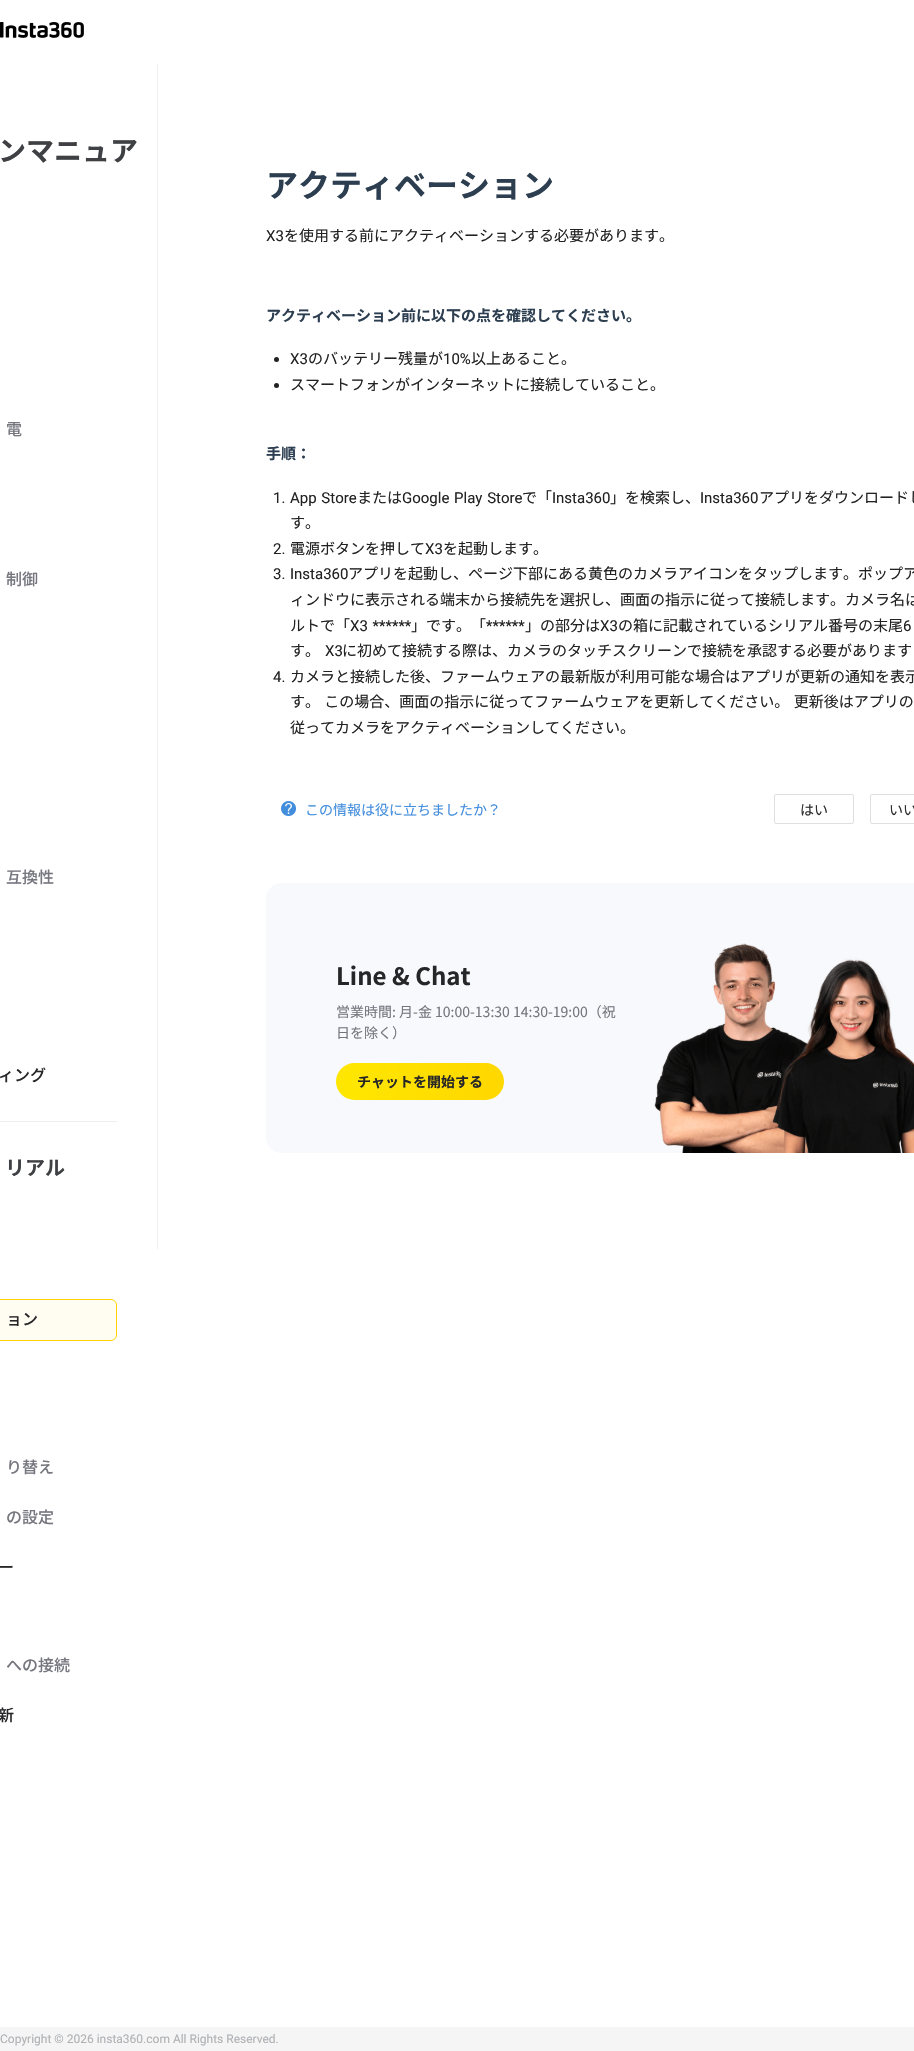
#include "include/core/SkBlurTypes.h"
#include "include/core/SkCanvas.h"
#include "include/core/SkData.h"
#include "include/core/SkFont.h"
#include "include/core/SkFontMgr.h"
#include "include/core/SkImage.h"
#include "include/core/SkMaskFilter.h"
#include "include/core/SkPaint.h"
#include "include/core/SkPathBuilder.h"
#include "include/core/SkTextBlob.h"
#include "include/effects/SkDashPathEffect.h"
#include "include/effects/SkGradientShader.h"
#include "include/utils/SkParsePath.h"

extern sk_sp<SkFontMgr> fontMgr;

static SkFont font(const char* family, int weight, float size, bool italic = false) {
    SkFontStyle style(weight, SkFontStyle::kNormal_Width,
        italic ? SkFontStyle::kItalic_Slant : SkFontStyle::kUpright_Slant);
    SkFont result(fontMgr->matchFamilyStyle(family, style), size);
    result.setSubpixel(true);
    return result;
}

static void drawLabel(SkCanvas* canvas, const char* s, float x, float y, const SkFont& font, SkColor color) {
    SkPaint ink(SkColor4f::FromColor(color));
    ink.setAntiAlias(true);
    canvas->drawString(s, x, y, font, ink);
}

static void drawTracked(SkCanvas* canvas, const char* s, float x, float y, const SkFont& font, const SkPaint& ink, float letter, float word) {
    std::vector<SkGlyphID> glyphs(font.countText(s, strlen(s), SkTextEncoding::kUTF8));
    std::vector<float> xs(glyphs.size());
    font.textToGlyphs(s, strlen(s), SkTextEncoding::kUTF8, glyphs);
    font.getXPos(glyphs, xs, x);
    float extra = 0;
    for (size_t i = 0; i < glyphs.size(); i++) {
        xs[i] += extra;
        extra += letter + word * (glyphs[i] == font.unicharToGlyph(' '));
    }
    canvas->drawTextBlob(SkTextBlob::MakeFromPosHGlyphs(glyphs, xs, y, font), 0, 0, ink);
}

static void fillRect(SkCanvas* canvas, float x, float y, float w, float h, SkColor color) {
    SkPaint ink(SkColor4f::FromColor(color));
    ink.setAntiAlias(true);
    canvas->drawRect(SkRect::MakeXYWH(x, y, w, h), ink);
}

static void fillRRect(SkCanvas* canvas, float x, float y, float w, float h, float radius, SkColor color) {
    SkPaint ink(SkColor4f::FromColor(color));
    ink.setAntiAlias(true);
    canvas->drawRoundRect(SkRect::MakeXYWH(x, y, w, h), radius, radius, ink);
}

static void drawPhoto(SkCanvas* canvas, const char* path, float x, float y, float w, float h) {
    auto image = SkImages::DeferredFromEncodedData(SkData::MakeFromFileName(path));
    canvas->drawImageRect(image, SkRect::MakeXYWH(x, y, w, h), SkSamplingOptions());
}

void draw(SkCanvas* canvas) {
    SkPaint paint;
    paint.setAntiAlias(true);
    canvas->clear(0xFFFFFFFF);
    drawPhoto(canvas, "assets/img1.png", 0, 22, 84, 16);
    SkFont font1 = font("Noto Sans CJK JP", 700, 28);
    drawLabel(canvas, "ンマニュア", -2, 161, font1, 0xFF3E4043);
    SkFont font2 = font("Noto Sans CJK JP", 500, 16);
    drawLabel(canvas, "電", 6, 435, font2, 0xFF76767F);
    drawLabel(canvas, "制御", 6, 585, font2, 0xFF76767F);
    drawLabel(canvas, "互換性", 6, 883, font2, 0xFF76767F);
    drawLabel(canvas, "ィング", -2, 1081, font2, 0xFF262629);
    fillRect(canvas, 0, 1121, 117, 1, 0xFFEDEFF2);
    SkFont font3 = font("Noto Sans CJK JP", 700, 20);
    drawLabel(canvas, "リアル", 5, 1175, font3, 0xFF3E4043);
    paint.setColor(0xFFFFFDF2);
    canvas->drawRoundRect(SkRect::MakeXYWH(-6.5f, 1299.5f, 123, 41), 5.5f, 5.5f, paint);
    paint.setStroke(true);
    paint.setStrokeWidth(1);
    paint.setColor(0xFFFFD200);
    canvas->drawRoundRect(SkRect::MakeXYWH(-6.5f, 1299.5f, 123, 41), 5.5f, 5.5f, paint);
    drawLabel(canvas, "ョン", 6, 1325, font2, 0xFF262629);
    drawLabel(canvas, "り替え", 6, 1473, font2, 0xFF76767F);
    drawLabel(canvas, "の設定", 6, 1523, font2, 0xFF76767F);
    drawLabel(canvas, "ー", -2, 1573, font2, 0xFF262629);
    drawLabel(canvas, "への接続", 6, 1671, font2, 0xFF76767F);
    drawLabel(canvas, "新", -2, 1721, font2, 0xFF262629);
    fillRect(canvas, 157, 64, 1, 1185, 0xFFEDEFF2);
    SkFont font4 = font("Noto Sans CJK JP", 700, 32);
    drawLabel(canvas, "アクティベーション", 266, 197, font4, 0xFF2C3E50);
    SkFont font5 = font("Roboto", 400, 15);
    drawLabel(canvas, "X3", 266, 241, font5, 0xFF222222);
    SkFont font6 = font("Noto Sans CJK JP", 400, 15);
    drawLabel(canvas, "を使用する前にアクティベーションする必要があります。", 284, 241, font6, 0xFF222222);
    SkFont font7 = font("Noto Sans CJK JP", 700, 15);
    drawLabel(canvas, "アクティベーション前に以下の点を確認してください。", 266, 321, font7, 0xFF2C3E50);
    paint.setStroke(false);
    paint.setColor(0xFF222222);
    canvas->drawCircle(276.5f, 359.5f, 2.5f, paint);
    drawLabel(canvas, "X3", 290, 364, font5, 0xFF222222);
    drawLabel(canvas, "のバッテリー残量が", 308, 364, font6, 0xFF222222);
    drawLabel(canvas, "10%", 443, 364, font5, 0xFF222222);
    drawLabel(canvas, "以上あること。", 471, 364, font6, 0xFF222222);
    canvas->drawCircle(276.5f, 385.5f, 2.5f, paint);
    drawLabel(canvas, "スマートフォンがインターネットに接続していること。", 290, 390, font6, 0xFF222222);
    drawLabel(canvas, "手順：", 266, 459, font7, 0xFF2C3E50);
    drawLabel(canvas, "1.", 273, 503, font5, 0xFF222222);
    drawTracked(canvas, "App Store", 290, 503, font5, paint, 0, 1);
    drawLabel(canvas, "または", 357, 503, font6, 0xFF222222);
    drawTracked(canvas, "Google Play Store", 402, 503, font5, paint, 0, 1);
    drawLabel(canvas, "で「", 522, 503, font6, 0xFF222222);
    drawLabel(canvas, "Insta360", 552, 503, font5, 0xFF222222);
    drawLabel(canvas, "」を検索し、", 610, 503, font6, 0xFF222222);
    drawLabel(canvas, "Insta360", 700, 503, font5, 0xFF222222);
    drawLabel(canvas, "アプリをダウンロードし", 759, 503, font6, 0xFF222222);
    drawLabel(canvas, "す。", 290, 528, font6, 0xFF222222);
    drawLabel(canvas, "2.", 273, 554, font5, 0xFF222222);
    drawLabel(canvas, "電源ボタンを押して", 290, 554, font6, 0xFF222222);
    drawLabel(canvas, "X3", 425, 554, font5, 0xFF222222);
    drawLabel(canvas, "を起動します。", 443, 554, font6, 0xFF222222);
    drawLabel(canvas, "3.", 273, 579, font5, 0xFF222222);
    drawLabel(canvas, "Insta360", 290, 579, font5, 0xFF222222);
    drawLabel(canvas, "アプリを起動し、ページ下部にある黄色のカメラアイコンをタップします。ポップア", 348, 579, font6, 0xFF222222);
    drawLabel(canvas, "ィンドウに表示される端末から接続先を選択し、画面の指示に従って接続します。カメラ名は", 290, 605, font6, 0xFF222222);
    drawLabel(canvas, "ルトで「", 290, 631, font6, 0xFF222222);
    drawTracked(canvas, "X3 ******", 350, 631, font5, paint, 0, 1);
    drawLabel(canvas, "」です。「", 411, 631, font6, 0xFF222222);
    drawLabel(canvas, "******", 486, 631, font5, 0xFF222222);
    drawLabel(canvas, "」の部分は", 525, 631, font6, 0xFF222222);
    drawLabel(canvas, "X3", 600, 631, font5, 0xFF222222);
    drawLabel(canvas, "の箱に記載されているシリアル番号の末尾", 618, 631, font6, 0xFF222222);
    drawLabel(canvas, "6", 903, 631, font5, 0xFF222222);
    drawLabel(canvas, "す。", 290, 656, font6, 0xFF222222);
    drawLabel(canvas, "X3", 325, 656, font5, 0xFF222222);
    drawLabel(canvas, "に初めて接続する際は、カメラのタッチスクリーンで接続を承認する必要があります", 342, 656, font6, 0xFF222222);
    drawLabel(canvas, "4.", 273, 682, font5, 0xFF222222);
    drawLabel(canvas, "カメラと接続した後、ファームウェアの最新版が利用可能な場合はアプリが更新の通知を表示", 290, 682, font6, 0xFF222222);
    drawTracked(canvas, "す。 この場合、画面の指示に従ってファームウェアを更新してください。 更新後はアプリの", 290, 707, font6, paint, 0, 1);
    drawLabel(canvas, "従ってカメラをアクティベーションしてください。", 290, 733, font6, 0xFF222222);
    drawPhoto(canvas, "assets/img2.png", 281, 801, 15, 15);
    SkFont font8 = font("Noto Sans CJK JP", 400, 14);
    drawLabel(canvas, "この情報は役に立ちましたか？", 305, 815, font8, 0xFF428DDE);
    paint.setStroke(true);
    paint.setColor(0xFFDFDFDF);
    canvas->drawRoundRect(SkRect::MakeXYWH(774.5f, 794.5f, 79, 29), 1.5f, 1.5f, paint);
    drawLabel(canvas, "はい", 800, 815, font8, 0xFF2D2D2D);
    canvas->drawRoundRect(SkRect::MakeXYWH(870.5f, 794.5f, 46, 29), 1.5f, 1.5f, paint);
    drawLabel(canvas, "いい", 889, 815, font8, 0xFF2D2D2D);
    fillRRect(canvas, 266, 883, 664, 270, 16, 0xFFF8F9FC);
    SkFont font9 = font("Noto Sans CJK SC", 700, 24);
    drawLabel(canvas, "Line & Chat", 336, 985, font9, 0xFF262629);
    SkFont font10 = font("Noto Sans CJK SC", 400, 14);
    drawLabel(canvas, "営業時間: 月-金 10:00-13:30 14:30-19:00（祝", 336, 1017, font10, 0xFF76767F);
    drawLabel(canvas, "日を除く）", 336, 1038, font10, 0xFF76767F);
    paint.setStroke(false);
    {
        const SkColor colors[] = {0xFFFFE600, 0xFFFFD800};
        const float stops[] = {0.11f, 0.91f};
        const SkPoint ends[] = {{335, 1077}, {505, 1086}};
        paint.setShader(SkGradientShader::MakeLinear(ends, colors, stops, 2, SkTileMode::kClamp));
        paint.setAlpha(255);
    }
    canvas->drawRoundRect(SkRect::MakeXYWH(336, 1063, 168, 37), 18.5f, 18.5f, paint);
    SkFont font11 = font("Noto Sans CJK SC", 700, 14);
    drawLabel(canvas, "チャットを開始する", 357, 1087, font11, 0xFF262629);
    drawPhoto(canvas, "assets/img3.png", 654, 943, 260, 210);
    fillRect(canvas, 0, 2027, 914, 24, 0xFFF5F5F5);
    SkFont font12 = font("Roboto", 400, 12);
    drawLabel(canvas, "Copyright © 2026 insta360.com All Rights Reserved.", 0, 2043, font12, 0xFFAFB1B4);
}
